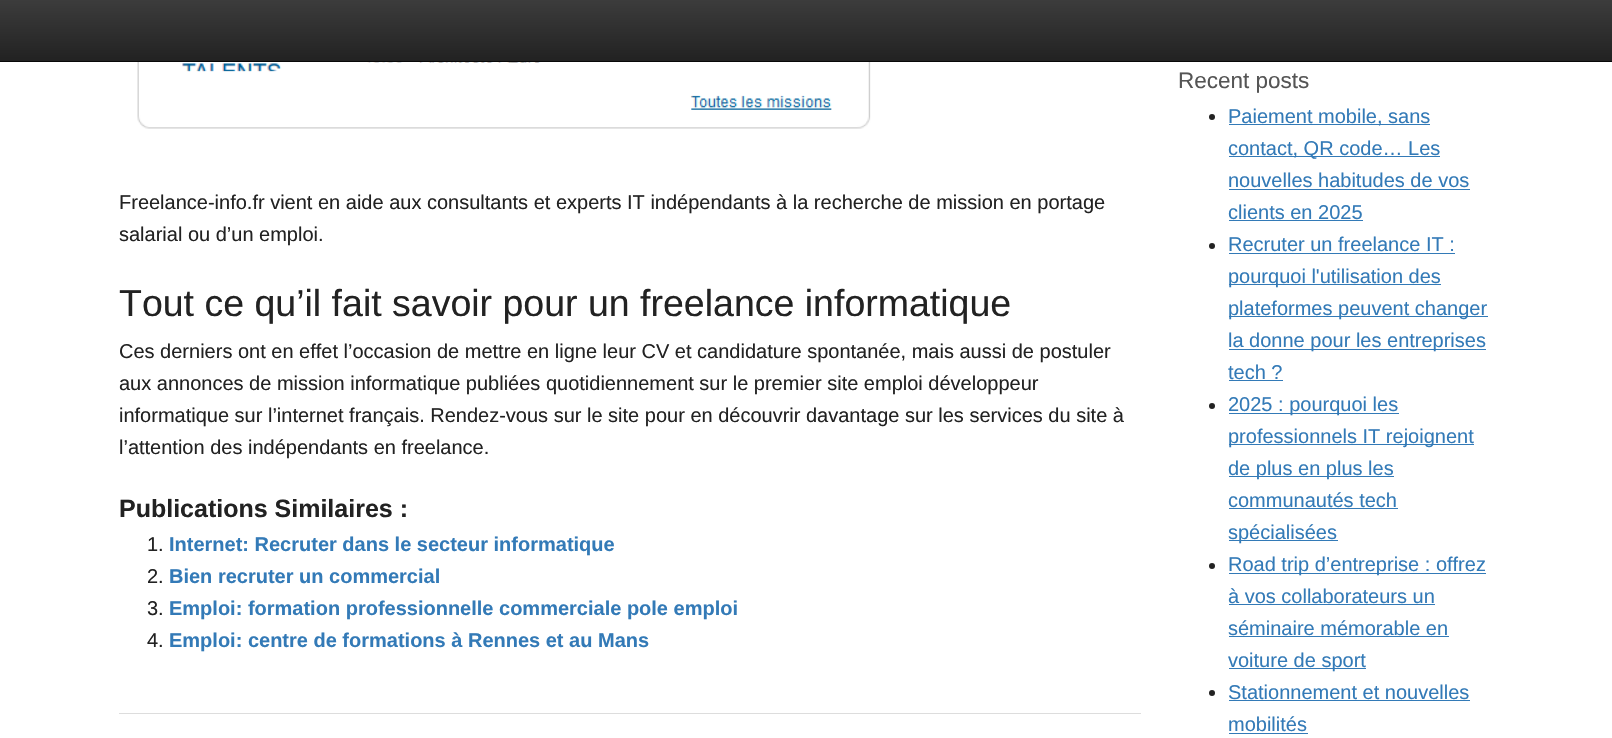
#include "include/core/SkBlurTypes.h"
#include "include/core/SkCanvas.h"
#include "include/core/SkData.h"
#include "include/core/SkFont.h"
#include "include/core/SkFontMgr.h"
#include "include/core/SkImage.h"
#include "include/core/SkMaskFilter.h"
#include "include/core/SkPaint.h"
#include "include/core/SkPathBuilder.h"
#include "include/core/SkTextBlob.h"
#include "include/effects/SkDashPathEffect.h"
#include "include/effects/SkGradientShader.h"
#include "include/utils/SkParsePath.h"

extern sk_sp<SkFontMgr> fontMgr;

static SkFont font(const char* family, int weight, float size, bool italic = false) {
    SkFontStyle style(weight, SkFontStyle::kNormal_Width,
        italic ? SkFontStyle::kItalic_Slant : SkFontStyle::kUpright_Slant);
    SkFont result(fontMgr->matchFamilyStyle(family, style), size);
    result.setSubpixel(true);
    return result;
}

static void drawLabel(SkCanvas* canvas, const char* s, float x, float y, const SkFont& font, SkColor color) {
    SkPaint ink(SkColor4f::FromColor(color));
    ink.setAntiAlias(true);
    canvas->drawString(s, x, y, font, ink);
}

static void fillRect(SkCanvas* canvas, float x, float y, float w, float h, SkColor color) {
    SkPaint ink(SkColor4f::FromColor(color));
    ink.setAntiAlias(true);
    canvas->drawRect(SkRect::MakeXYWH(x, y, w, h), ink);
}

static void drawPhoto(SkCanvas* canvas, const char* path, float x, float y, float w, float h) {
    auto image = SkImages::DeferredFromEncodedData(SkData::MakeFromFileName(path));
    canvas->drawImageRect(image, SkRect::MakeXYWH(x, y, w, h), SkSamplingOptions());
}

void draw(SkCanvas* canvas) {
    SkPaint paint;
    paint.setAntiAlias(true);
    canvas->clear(0xFFFFFFFF);
    {
        const SkColor colors[] = {0xFF3C3C3C, 0xFF222222};
        const float stops[] = {0, 1};
        const SkPoint ends[] = {{806, 0}, {806, 61}};
        paint.setShader(SkGradientShader::MakeLinear(ends, colors, stops, 2, SkTileMode::kClamp));
        paint.setAlpha(255);
    }
    canvas->drawRect(SkRect::MakeXYWH(0, 0, 1612, 61), paint);
    fillRect(canvas, 0, 61, 1612, 1, 0xFF080808);
    fillRect(canvas, 119, 713, 1022, 1, 0xFFDDDDDD);
    drawPhoto(canvas, "assets/img1.png", 137, 62, 734, 67);
    SkFont font1 = font("Liberation Sans", 400, 20);
    drawLabel(canvas, "Freelance-info.fr vient en aide aux consultants et experts IT indépendants à la recherche de mission en portage", 119, 209, font1, 0xFF222222);
    drawLabel(canvas, "salarial ou d’un emploi.", 119, 241, font1, 0xFF222222);
    SkFont font2 = font("Liberation Sans", 400, 37.5f);
    drawLabel(canvas, "Tout ce qu’il fait savoir pour un freelance informatique", 119, 316, font2, 0xFF222222);
    drawLabel(canvas, "Ces derniers ont en effet l’occasion de mettre en ligne leur CV et candidature spontanée, mais aussi de postuler", 119, 358, font1, 0xFF222222);
    drawLabel(canvas, "aux annonces de mission informatique publiées quotidiennement sur le premier site emploi développeur", 119, 390, font1, 0xFF222222);
    drawLabel(canvas, "informatique sur l’internet français. Rendez-vous sur le site pour en découvrir davantage sur les services du site à", 119, 422, font1, 0xFF222222);
    drawLabel(canvas, "l’attention des indépendants en freelance.", 119, 454, font1, 0xFF222222);
    SkFont font3 = font("Liberation Sans", 700, 25);
    drawLabel(canvas, "Publications Similaires :", 119, 517, font3, 0xFF222222);
    drawLabel(canvas, "1.", 147, 551, font1, 0xFF222222);
    SkFont font4 = font("Liberation Sans", 700, 20);
    drawLabel(canvas, "Internet: Recruter dans le secteur informatique", 169, 551, font4, 0xFF337AB7);
    drawLabel(canvas, "2.", 147, 583, font1, 0xFF222222);
    drawLabel(canvas, "Bien recruter un commercial", 169, 583, font4, 0xFF337AB7);
    drawLabel(canvas, "3.", 147, 615, font1, 0xFF222222);
    drawLabel(canvas, "Emploi: formation professionnelle commerciale pole emploi", 169, 615, font4, 0xFF337AB7);
    drawLabel(canvas, "4.", 147, 647, font1, 0xFF222222);
    drawLabel(canvas, "Emploi: centre de formations à Rennes et au Mans", 169, 647, font4, 0xFF337AB7);
    SkFont font5 = font("Liberation Sans", 400, 22.5f);
    drawLabel(canvas, "Recent posts", 1178, 88, font5, 0xFF555555);
    paint.setShader(nullptr);
    paint.setColor(0xFF222222);
    canvas->drawCircle(1212, 117, 3, paint);
    fillRect(canvas, 1229, 124, 201, 1, 0xFF337AB7);
    drawLabel(canvas, "Paiement mobile, sans", 1228, 123, font1, 0xFF337AB7);
    fillRect(canvas, 1229, 156, 211, 1, 0xFF337AB7);
    drawLabel(canvas, "contact, QR code… Les", 1228, 155, font1, 0xFF337AB7);
    drawLabel(canvas, "nouvelles habitudes de vos", 1228, 187, font1, 0xFF337AB7);
    fillRect(canvas, 1229, 189, 241, 1, 0xFF337AB7);
    drawLabel(canvas, "clients en 2025", 1228, 219, font1, 0xFF337AB7);
    fillRect(canvas, 1229, 220, 134, 1, 0xFF337AB7);
    canvas->drawCircle(1212, 246, 3, paint);
    drawLabel(canvas, "Recruter un freelance IT :", 1228, 251, font1, 0xFF337AB7);
    fillRect(canvas, 1229, 253, 226, 1, 0xFF337AB7);
    fillRect(canvas, 1229, 284, 212, 1, 0xFF337AB7);
    drawLabel(canvas, "pourquoi l'utilisation des", 1228, 283, font1, 0xFF337AB7);
    fillRect(canvas, 1229, 316, 259, 1, 0xFF337AB7);
    drawLabel(canvas, "plateformes peuvent changer", 1228, 315, font1, 0xFF337AB7);
    fillRect(canvas, 1229, 349, 257, 1, 0xFF337AB7);
    drawLabel(canvas, "la donne pour les entreprises", 1228, 347, font1, 0xFF337AB7);
    drawLabel(canvas, "tech ?", 1228, 379, font1, 0xFF337AB7);
    fillRect(canvas, 1229, 380, 54, 1, 0xFF337AB7);
    canvas->drawCircle(1212, 406, 3, paint);
    fillRect(canvas, 1229, 413, 170, 1, 0xFF337AB7);
    drawLabel(canvas, "2025 : pourquoi les", 1228, 411, font1, 0xFF337AB7);
    fillRect(canvas, 1229, 444, 245, 1, 0xFF337AB7);
    drawLabel(canvas, "professionnels IT rejoignent", 1228, 443, font1, 0xFF337AB7);
    fillRect(canvas, 1229, 476, 165, 1, 0xFF337AB7);
    drawLabel(canvas, "de plus en plus les", 1228, 475, font1, 0xFF337AB7);
    drawLabel(canvas, "communautés tech", 1228, 507, font1, 0xFF337AB7);
    fillRect(canvas, 1229, 508, 169, 1, 0xFF337AB7);
    fillRect(canvas, 1229, 540, 109, 1, 0xFF337AB7);
    drawLabel(canvas, "spécialisées", 1228, 539, font1, 0xFF337AB7);
    canvas->drawCircle(1212, 566, 3, paint);
    fillRect(canvas, 1229, 573, 257, 1, 0xFF337AB7);
    drawLabel(canvas, "Road trip d’entreprise : offrez", 1228, 571, font1, 0xFF337AB7);
    drawLabel(canvas, "à vos collaborateurs un", 1228, 603, font1, 0xFF337AB7);
    fillRect(canvas, 1229, 604, 206, 1, 0xFF337AB7);
    drawLabel(canvas, "séminaire mémorable en", 1228, 635, font1, 0xFF337AB7);
    fillRect(canvas, 1229, 636, 220, 1, 0xFF337AB7);
    fillRect(canvas, 1229, 668, 137, 1, 0xFF337AB7);
    drawLabel(canvas, "voiture de sport", 1228, 667, font1, 0xFF337AB7);
    canvas->drawCircle(1212, 693, 3, paint);
    drawLabel(canvas, "Stationnement et nouvelles", 1228, 699, font1, 0xFF337AB7);
    fillRect(canvas, 1229, 700, 241, 1, 0xFF337AB7);
    drawLabel(canvas, "mobilités", 1228, 731, font1, 0xFF337AB7);
    fillRect(canvas, 1229, 733, 79, 1, 0xFF337AB7);
}
